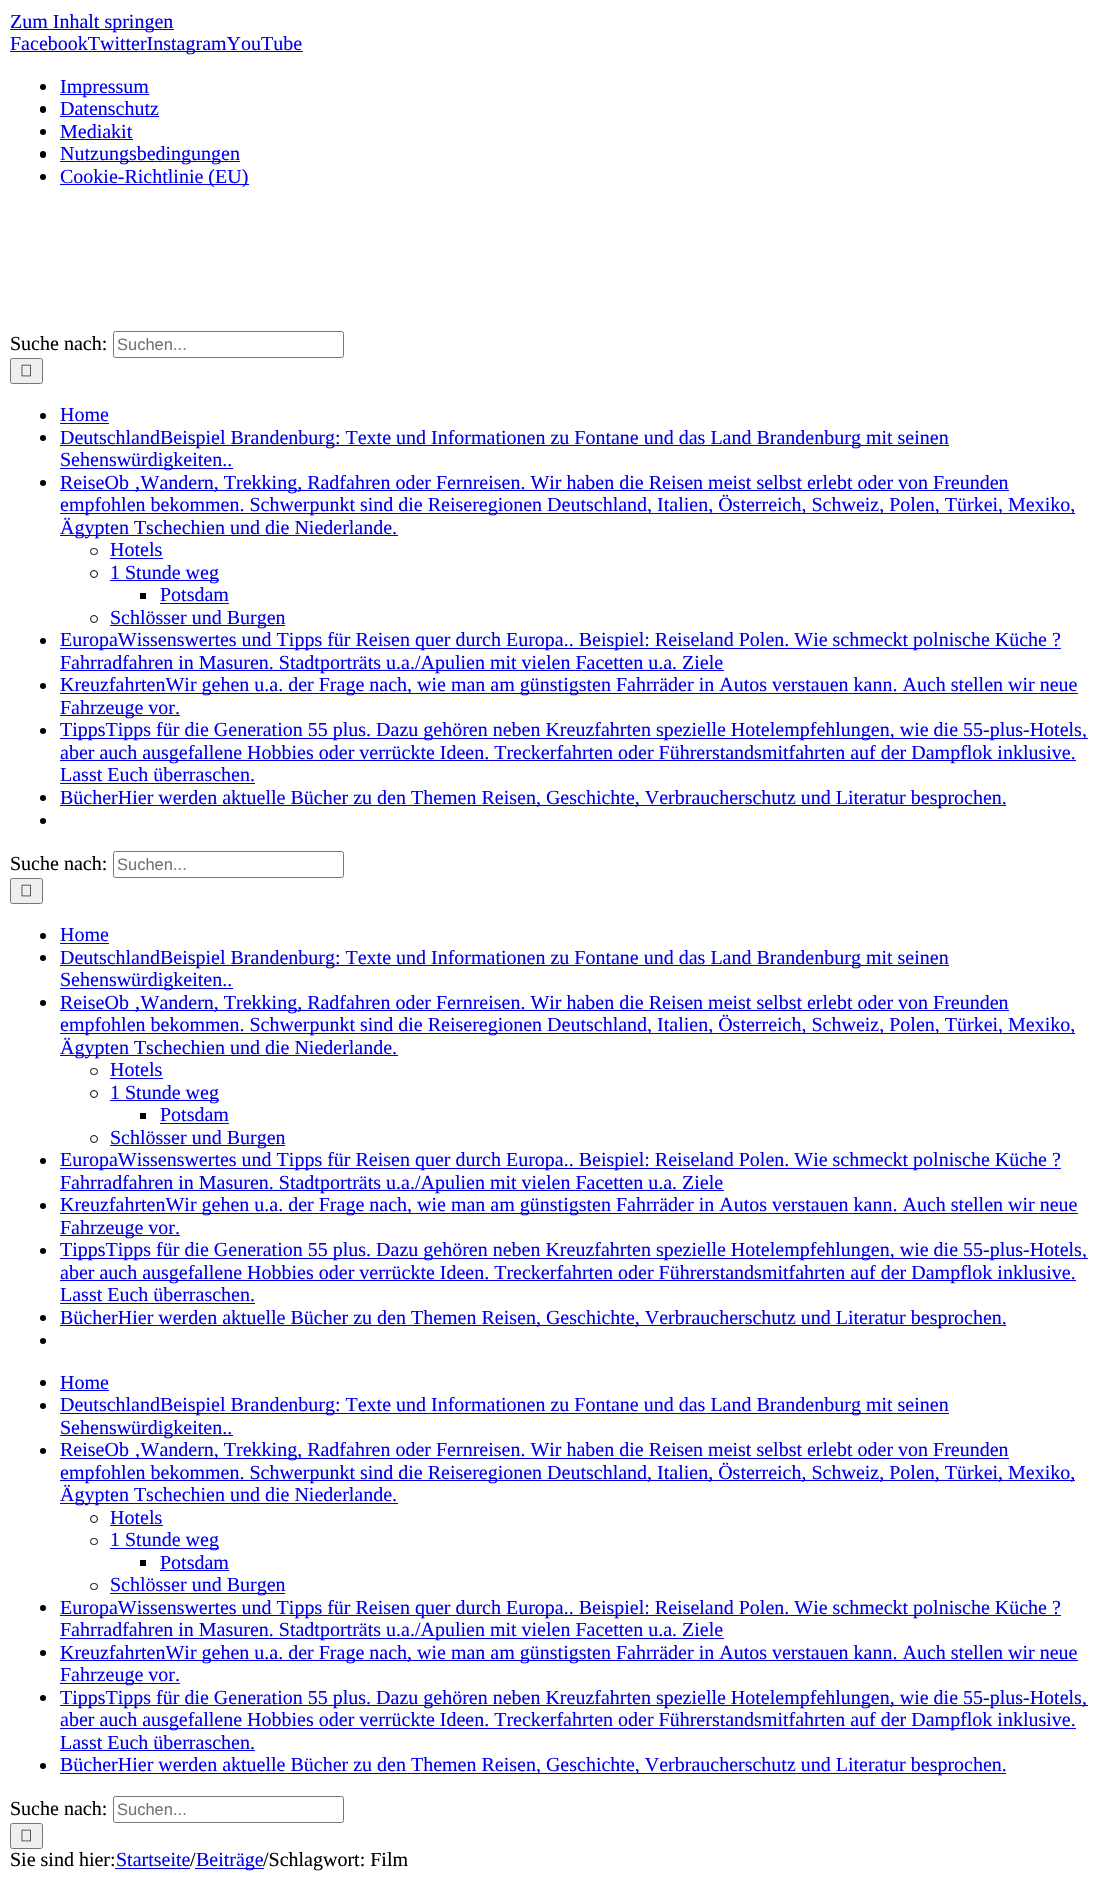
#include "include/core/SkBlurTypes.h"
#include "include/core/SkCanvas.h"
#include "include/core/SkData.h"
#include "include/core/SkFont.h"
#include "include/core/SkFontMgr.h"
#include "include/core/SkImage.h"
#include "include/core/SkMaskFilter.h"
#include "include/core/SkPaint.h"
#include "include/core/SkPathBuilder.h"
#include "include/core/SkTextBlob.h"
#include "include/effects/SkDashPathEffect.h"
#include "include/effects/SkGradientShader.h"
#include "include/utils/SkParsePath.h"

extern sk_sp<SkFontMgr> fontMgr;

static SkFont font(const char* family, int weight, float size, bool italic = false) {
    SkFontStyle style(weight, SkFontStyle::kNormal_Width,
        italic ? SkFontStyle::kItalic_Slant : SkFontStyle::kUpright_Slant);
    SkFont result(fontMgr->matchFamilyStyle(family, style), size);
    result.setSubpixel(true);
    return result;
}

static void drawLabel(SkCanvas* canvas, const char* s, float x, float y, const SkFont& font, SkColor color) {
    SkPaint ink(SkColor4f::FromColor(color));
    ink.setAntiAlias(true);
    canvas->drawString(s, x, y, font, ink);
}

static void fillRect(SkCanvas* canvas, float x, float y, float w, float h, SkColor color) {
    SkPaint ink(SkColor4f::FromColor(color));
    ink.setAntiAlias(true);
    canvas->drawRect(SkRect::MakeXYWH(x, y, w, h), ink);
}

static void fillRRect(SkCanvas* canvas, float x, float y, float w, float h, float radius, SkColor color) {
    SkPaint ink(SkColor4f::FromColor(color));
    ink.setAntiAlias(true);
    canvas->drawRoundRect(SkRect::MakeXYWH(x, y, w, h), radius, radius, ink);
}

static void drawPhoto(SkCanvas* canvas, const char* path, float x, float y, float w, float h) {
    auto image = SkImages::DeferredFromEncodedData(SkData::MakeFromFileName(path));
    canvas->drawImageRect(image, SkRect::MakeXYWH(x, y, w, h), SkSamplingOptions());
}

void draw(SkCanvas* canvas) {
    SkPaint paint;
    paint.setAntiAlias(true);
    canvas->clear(0xFFFFFFFF);
    fillRect(canvas, 10, 29, 164, 1, 0xFF0000EE);
    SkFont font1 = font("Liberation Serif", 400, 20);
    drawLabel(canvas, "Zum Inhalt springen", 10, 28, font1, 0xFF0000EE);
    fillRect(canvas, 10, 51, 216, 1, 0xFF0000EE);
    drawLabel(canvas, "FacebookTwitterInstagramYouTube", 10, 50, font1, 0xFF0000EE);
    fillRect(canvas, 226, 51, 77, 1, 0xFF0000EE);
    paint.setColor(0xFF000000);
    canvas->drawCircle(43, 87, 3, paint);
    fillRect(canvas, 60, 94, 89, 1, 0xFF0000EE);
    drawLabel(canvas, "Impressum", 60, 93, font1, 0xFF0000EE);
    fillRRect(canvas, 40, 106, 6, 7, 3, 0xFF000000);
    drawLabel(canvas, "Datenschutz", 60, 115, font1, 0xFF0000EE);
    fillRect(canvas, 60, 116, 99, 1, 0xFF0000EE);
    canvas->drawCircle(43, 132, 3, paint);
    drawLabel(canvas, "Mediakit", 60, 138, font1, 0xFF0000EE);
    fillRect(canvas, 60, 139, 73, 1, 0xFF0000EE);
    fillRRect(canvas, 40, 151, 6, 7, 3, 0xFF000000);
    fillRect(canvas, 60, 161, 180, 1, 0xFF0000EE);
    drawLabel(canvas, "Nutzungsbedingungen", 60, 160, font1, 0xFF0000EE);
    canvas->drawCircle(43, 177, 3, paint);
    fillRect(canvas, 60, 184, 189, 1, 0xFF0000EE);
    drawLabel(canvas, "Cookie-Richtlinie (EU)", 60, 183, font1, 0xFF0000EE);
    drawLabel(canvas, "Suche nach:", 10, 350, font1, 0xFF000000);
    paint.setStroke(true);
    paint.setStrokeWidth(1);
    paint.setColor(0xFF767676);
    canvas->drawRoundRect(SkRect::MakeXYWH(113.5f, 331.5f, 230, 26), 2, 2, paint);
    SkFont font2 = font("Liberation Sans", 400, 16.5f);
    drawLabel(canvas, "Suchen...", 117, 350, font2, 0xFF757575);
    paint.setStroke(false);
    paint.setColor(0xFFEFEFEF);
    canvas->drawRoundRect(SkRect::MakeXYWH(10.5f, 358.5f, 32, 25), 2, 2, paint);
    paint.setStroke(true);
    paint.setColor(0xFF767676);
    canvas->drawRoundRect(SkRect::MakeXYWH(10.5f, 358.5f, 32, 25), 2, 2, paint);
    drawPhoto(canvas, "assets/img1.png", 21, 364, 10, 13);
    paint.setStroke(false);
    paint.setColor(0xFF000000);
    canvas->drawCircle(43, 416, 3, paint);
    drawLabel(canvas, "Home", 60, 421, font1, 0xFF0000EE);
    fillRect(canvas, 60, 423, 49, 1, 0xFF0000EE);
    canvas->drawCircle(43, 438, 3, paint);
    fillRect(canvas, 60, 445, 889, 1, 0xFF0000EE);
    drawLabel(canvas, "DeutschlandBeispiel Brandenburg: Texte und Informationen zu Fontane und das Land Brandenburg mit seinen", 60, 444, font1, 0xFF0000EE);
    fillRect(canvas, 60, 468, 173, 1, 0xFF0000EE);
    drawLabel(canvas, "Sehenswürdigkeiten..", 60, 466, font1, 0xFF0000EE);
    canvas->drawCircle(43, 483, 3, paint);
    fillRect(canvas, 60, 490, 949, 1, 0xFF0000EE);
    drawLabel(canvas, "ReiseOb ‚Wandern, Trekking, Radfahren oder Fernreisen. Wir haben die Reisen meist selbst erlebt oder von Freunden", 60, 489, font1, 0xFF0000EE);
    fillRect(canvas, 60, 513, 1015, 1, 0xFF0000EE);
    drawLabel(canvas, "empfohlen bekommen. Schwerpunkt sind die Reiseregionen Deutschland, Italien, Österreich, Schweiz, Polen, Türkei, Mexiko,", 60, 511, font1, 0xFF0000EE);
    fillRect(canvas, 60, 535, 338, 1, 0xFF0000EE);
    drawLabel(canvas, "Ägypten Tschechien und die Niederlande.", 60, 534, font1, 0xFF0000EE);
    paint.setStroke(true);
    canvas->drawRoundRect(SkRect::MakeXYWH(90.5f, 548.5f, 7, 6), 3, 3, paint);
    drawLabel(canvas, "Hotels", 110, 556, font1, 0xFF0000EE);
    fillRect(canvas, 110, 558, 53, 1, 0xFF0000EE);
    canvas->drawCircle(94, 574, 3.5f, paint);
    fillRect(canvas, 110, 580, 109, 1, 0xFF0000EE);
    drawLabel(canvas, "1 Stunde weg", 110, 579, font1, 0xFF0000EE);
    fillRect(canvas, 140, 593, 6, 6, 0xFF000000);
    drawLabel(canvas, "Potsdam", 160, 601, font1, 0xFF0000EE);
    fillRect(canvas, 160, 603, 69, 1, 0xFF0000EE);
    canvas->drawCircle(94, 619, 3.5f, paint);
    fillRect(canvas, 110, 625, 175, 1, 0xFF0000EE);
    drawLabel(canvas, "Schlösser und Burgen", 110, 624, font1, 0xFF0000EE);
    paint.setStroke(false);
    canvas->drawCircle(43, 641, 3, paint);
    fillRect(canvas, 60, 648, 1001, 1, 0xFF0000EE);
    drawLabel(canvas, "EuropaWissenswertes und Tipps für Reisen quer durch Europa.. Beispiel: Reiseland Polen. Wie schmeckt polnische Küche ?", 60, 646, font1, 0xFF0000EE);
    fillRect(canvas, 60, 670, 664, 1, 0xFF0000EE);
    drawLabel(canvas, "Fahrradfahren in Masuren. Stadtporträts u.a./Apulien mit vielen Facetten u.a. Ziele", 60, 669, font1, 0xFF0000EE);
    canvas->drawCircle(43, 686, 3, paint);
    fillRect(canvas, 60, 693, 1018, 1, 0xFF0000EE);
    drawLabel(canvas, "KreuzfahrtenWir gehen u.a. der Frage nach, wie man am günstigsten Fahrräder in Autos verstauen kann. Auch stellen wir neue", 60, 691, font1, 0xFF0000EE);
    fillRect(canvas, 60, 715, 120, 1, 0xFF0000EE);
    drawLabel(canvas, "Fahrzeuge vor.", 60, 714, font1, 0xFF0000EE);
    canvas->drawCircle(43, 731, 3, paint);
    fillRect(canvas, 60, 738, 1028, 1, 0xFF0000EE);
    drawLabel(canvas, "TippsTipps für die Generation 55 plus. Dazu gehören neben Kreuzfahrten spezielle Hotelempfehlungen, wie die 55-plus-Hotels,", 60, 736, font1, 0xFF0000EE);
    fillRect(canvas, 60, 760, 1016, 1, 0xFF0000EE);
    drawLabel(canvas, "aber auch ausgefallene Hobbies oder verrückte Ideen. Treckerfahrten oder Führerstandsmitfahrten auf der Dampflok inklusive.", 60, 759, font1, 0xFF0000EE);
    drawLabel(canvas, "Lasst Euch überraschen.", 60, 781, font1, 0xFF0000EE);
    fillRect(canvas, 60, 783, 195, 1, 0xFF0000EE);
    canvas->drawCircle(43, 798, 3, paint);
    fillRect(canvas, 60, 805, 946, 1, 0xFF0000EE);
    drawLabel(canvas, "BücherHier werden aktuelle Bücher zu den Themen Reisen, Geschichte, Verbraucherschutz und Literatur besprochen.", 60, 804, font1, 0xFF0000EE);
    canvas->drawCircle(43, 821, 3, paint);
    drawLabel(canvas, "Suche nach:", 10, 870, font1, 0xFF000000);
    paint.setStroke(true);
    paint.setColor(0xFF767676);
    canvas->drawRoundRect(SkRect::MakeXYWH(113.5f, 851.5f, 230, 26), 2, 2, paint);
    drawLabel(canvas, "Suchen...", 117, 870, font2, 0xFF757575);
    paint.setStroke(false);
    paint.setColor(0xFFEFEFEF);
    canvas->drawRoundRect(SkRect::MakeXYWH(10.5f, 878.5f, 32, 25), 2, 2, paint);
    paint.setStroke(true);
    paint.setColor(0xFF767676);
    canvas->drawRoundRect(SkRect::MakeXYWH(10.5f, 878.5f, 32, 25), 2, 2, paint);
    drawPhoto(canvas, "assets/img1.png", 21, 884, 10, 13);
    paint.setStroke(false);
    paint.setColor(0xFF000000);
    canvas->drawCircle(43, 936, 3, paint);
    drawLabel(canvas, "Home", 60, 941, font1, 0xFF0000EE);
    fillRect(canvas, 60, 943, 49, 1, 0xFF0000EE);
    canvas->drawCircle(43, 958, 3, paint);
    fillRect(canvas, 60, 965, 889, 1, 0xFF0000EE);
    drawLabel(canvas, "DeutschlandBeispiel Brandenburg: Texte und Informationen zu Fontane und das Land Brandenburg mit seinen", 60, 964, font1, 0xFF0000EE);
    fillRect(canvas, 60, 988, 173, 1, 0xFF0000EE);
    drawLabel(canvas, "Sehenswürdigkeiten..", 60, 986, font1, 0xFF0000EE);
    canvas->drawCircle(43, 1003, 3, paint);
    fillRect(canvas, 60, 1010, 949, 1, 0xFF0000EE);
    drawLabel(canvas, "ReiseOb ‚Wandern, Trekking, Radfahren oder Fernreisen. Wir haben die Reisen meist selbst erlebt oder von Freunden", 60, 1009, font1, 0xFF0000EE);
    fillRect(canvas, 60, 1033, 1015, 1, 0xFF0000EE);
    drawLabel(canvas, "empfohlen bekommen. Schwerpunkt sind die Reiseregionen Deutschland, Italien, Österreich, Schweiz, Polen, Türkei, Mexiko,", 60, 1031, font1, 0xFF0000EE);
    fillRect(canvas, 60, 1055, 338, 1, 0xFF0000EE);
    drawLabel(canvas, "Ägypten Tschechien und die Niederlande.", 60, 1054, font1, 0xFF0000EE);
    paint.setStroke(true);
    canvas->drawRoundRect(SkRect::MakeXYWH(90.5f, 1068.5f, 7, 6), 3, 3, paint);
    drawLabel(canvas, "Hotels", 110, 1076, font1, 0xFF0000EE);
    fillRect(canvas, 110, 1078, 53, 1, 0xFF0000EE);
    canvas->drawCircle(94, 1094, 3.5f, paint);
    fillRect(canvas, 110, 1100, 109, 1, 0xFF0000EE);
    drawLabel(canvas, "1 Stunde weg", 110, 1099, font1, 0xFF0000EE);
    fillRect(canvas, 140, 1113, 6, 6, 0xFF000000);
    drawLabel(canvas, "Potsdam", 160, 1121, font1, 0xFF0000EE);
    fillRect(canvas, 160, 1123, 69, 1, 0xFF0000EE);
    canvas->drawCircle(94, 1139, 3.5f, paint);
    fillRect(canvas, 110, 1145, 175, 1, 0xFF0000EE);
    drawLabel(canvas, "Schlösser und Burgen", 110, 1144, font1, 0xFF0000EE);
    paint.setStroke(false);
    canvas->drawCircle(43, 1161, 3, paint);
    fillRect(canvas, 60, 1168, 1001, 1, 0xFF0000EE);
    drawLabel(canvas, "EuropaWissenswertes und Tipps für Reisen quer durch Europa.. Beispiel: Reiseland Polen. Wie schmeckt polnische Küche ?", 60, 1166, font1, 0xFF0000EE);
    fillRect(canvas, 60, 1190, 664, 1, 0xFF0000EE);
    drawLabel(canvas, "Fahrradfahren in Masuren. Stadtporträts u.a./Apulien mit vielen Facetten u.a. Ziele", 60, 1189, font1, 0xFF0000EE);
    canvas->drawCircle(43, 1206, 3, paint);
    fillRect(canvas, 60, 1213, 1018, 1, 0xFF0000EE);
    drawLabel(canvas, "KreuzfahrtenWir gehen u.a. der Frage nach, wie man am günstigsten Fahrräder in Autos verstauen kann. Auch stellen wir neue", 60, 1211, font1, 0xFF0000EE);
    fillRect(canvas, 60, 1235, 120, 1, 0xFF0000EE);
    drawLabel(canvas, "Fahrzeuge vor.", 60, 1234, font1, 0xFF0000EE);
    canvas->drawCircle(43, 1251, 3, paint);
    fillRect(canvas, 60, 1258, 1028, 1, 0xFF0000EE);
    drawLabel(canvas, "TippsTipps für die Generation 55 plus. Dazu gehören neben Kreuzfahrten spezielle Hotelempfehlungen, wie die 55-plus-Hotels,", 60, 1256, font1, 0xFF0000EE);
    fillRect(canvas, 60, 1280, 1016, 1, 0xFF0000EE);
    drawLabel(canvas, "aber auch ausgefallene Hobbies oder verrückte Ideen. Treckerfahrten oder Führerstandsmitfahrten auf der Dampflok inklusive.", 60, 1279, font1, 0xFF0000EE);
    drawLabel(canvas, "Lasst Euch überraschen.", 60, 1301, font1, 0xFF0000EE);
    fillRect(canvas, 60, 1303, 195, 1, 0xFF0000EE);
    canvas->drawCircle(43, 1318, 3, paint);
    fillRect(canvas, 60, 1325, 946, 1, 0xFF0000EE);
    drawLabel(canvas, "BücherHier werden aktuelle Bücher zu den Themen Reisen, Geschichte, Verbraucherschutz und Literatur besprochen.", 60, 1324, font1, 0xFF0000EE);
    canvas->drawCircle(43, 1341, 3, paint);
    canvas->drawCircle(43, 1383, 3, paint);
    drawLabel(canvas, "Home", 60, 1389, font1, 0xFF0000EE);
    fillRect(canvas, 60, 1390, 49, 1, 0xFF0000EE);
    canvas->drawCircle(43, 1406, 3, paint);
    fillRect(canvas, 60, 1413, 889, 1, 0xFF0000EE);
    drawLabel(canvas, "DeutschlandBeispiel Brandenburg: Texte und Informationen zu Fontane und das Land Brandenburg mit seinen", 60, 1411, font1, 0xFF0000EE);
    fillRect(canvas, 60, 1435, 173, 1, 0xFF0000EE);
    drawLabel(canvas, "Sehenswürdigkeiten..", 60, 1434, font1, 0xFF0000EE);
    canvas->drawCircle(43, 1451, 3, paint);
    fillRect(canvas, 60, 1458, 949, 1, 0xFF0000EE);
    drawLabel(canvas, "ReiseOb ‚Wandern, Trekking, Radfahren oder Fernreisen. Wir haben die Reisen meist selbst erlebt oder von Freunden", 60, 1456, font1, 0xFF0000EE);
    fillRect(canvas, 60, 1480, 1015, 1, 0xFF0000EE);
    drawLabel(canvas, "empfohlen bekommen. Schwerpunkt sind die Reiseregionen Deutschland, Italien, Österreich, Schweiz, Polen, Türkei, Mexiko,", 60, 1479, font1, 0xFF0000EE);
    fillRect(canvas, 60, 1503, 338, 1, 0xFF0000EE);
    drawLabel(canvas, "Ägypten Tschechien und die Niederlande.", 60, 1501, font1, 0xFF0000EE);
    paint.setStroke(true);
    canvas->drawCircle(94, 1519, 3.5f, paint);
    drawLabel(canvas, "Hotels", 110, 1524, font1, 0xFF0000EE);
    fillRect(canvas, 110, 1525, 53, 1, 0xFF0000EE);
    canvas->drawRoundRect(SkRect::MakeXYWH(90.5f, 1538.5f, 7, 6), 3, 3, paint);
    fillRect(canvas, 110, 1548, 109, 1, 0xFF0000EE);
    drawLabel(canvas, "1 Stunde weg", 110, 1546, font1, 0xFF0000EE);
    fillRect(canvas, 140, 1560, 6, 6, 0xFF000000);
    drawLabel(canvas, "Potsdam", 160, 1569, font1, 0xFF0000EE);
    fillRect(canvas, 160, 1570, 69, 1, 0xFF0000EE);
    canvas->drawRoundRect(SkRect::MakeXYWH(90.5f, 1583.5f, 7, 6), 3, 3, paint);
    fillRect(canvas, 110, 1593, 175, 1, 0xFF0000EE);
    drawLabel(canvas, "Schlösser und Burgen", 110, 1591, font1, 0xFF0000EE);
    paint.setStroke(false);
    canvas->drawCircle(43, 1608, 3, paint);
    fillRect(canvas, 60, 1615, 1001, 1, 0xFF0000EE);
    drawLabel(canvas, "EuropaWissenswertes und Tipps für Reisen quer durch Europa.. Beispiel: Reiseland Polen. Wie schmeckt polnische Küche ?", 60, 1614, font1, 0xFF0000EE);
    fillRect(canvas, 60, 1638, 664, 1, 0xFF0000EE);
    drawLabel(canvas, "Fahrradfahren in Masuren. Stadtporträts u.a./Apulien mit vielen Facetten u.a. Ziele", 60, 1636, font1, 0xFF0000EE);
    canvas->drawCircle(43, 1653, 3, paint);
    fillRect(canvas, 60, 1660, 1018, 1, 0xFF0000EE);
    drawLabel(canvas, "KreuzfahrtenWir gehen u.a. der Frage nach, wie man am günstigsten Fahrräder in Autos verstauen kann. Auch stellen wir neue", 60, 1659, font1, 0xFF0000EE);
    fillRect(canvas, 60, 1683, 120, 1, 0xFF0000EE);
    drawLabel(canvas, "Fahrzeuge vor.", 60, 1681, font1, 0xFF0000EE);
    canvas->drawCircle(43, 1698, 3, paint);
    fillRect(canvas, 60, 1705, 1028, 1, 0xFF0000EE);
    drawLabel(canvas, "TippsTipps für die Generation 55 plus. Dazu gehören neben Kreuzfahrten spezielle Hotelempfehlungen, wie die 55-plus-Hotels,", 60, 1704, font1, 0xFF0000EE);
    fillRect(canvas, 60, 1728, 1016, 1, 0xFF0000EE);
    drawLabel(canvas, "aber auch ausgefallene Hobbies oder verrückte Ideen. Treckerfahrten oder Führerstandsmitfahrten auf der Dampflok inklusive.", 60, 1726, font1, 0xFF0000EE);
    drawLabel(canvas, "Lasst Euch überraschen.", 60, 1749, font1, 0xFF0000EE);
    fillRect(canvas, 60, 1750, 195, 1, 0xFF0000EE);
    canvas->drawCircle(43, 1766, 3, paint);
    fillRect(canvas, 60, 1773, 946, 1, 0xFF0000EE);
    drawLabel(canvas, "BücherHier werden aktuelle Bücher zu den Themen Reisen, Geschichte, Verbraucherschutz und Literatur besprochen.", 60, 1771, font1, 0xFF0000EE);
    drawLabel(canvas, "Suche nach:", 10, 1815, font1, 0xFF000000);
    paint.setStroke(true);
    paint.setColor(0xFF767676);
    canvas->drawRoundRect(SkRect::MakeXYWH(113.5f, 1796.5f, 230, 26), 2, 2, paint);
    drawLabel(canvas, "Suchen...", 117, 1815, font2, 0xFF757575);
    paint.setStroke(false);
    paint.setColor(0xFFEFEFEF);
    canvas->drawRoundRect(SkRect::MakeXYWH(10.5f, 1823.5f, 32, 25), 2, 2, paint);
    paint.setStroke(true);
    paint.setColor(0xFF767676);
    canvas->drawRoundRect(SkRect::MakeXYWH(10.5f, 1823.5f, 32, 25), 2, 2, paint);
    drawPhoto(canvas, "assets/img1.png", 21, 1829, 10, 13);
    drawLabel(canvas, "Sie sind hier:", 10, 1866, font1, 0xFF000000);
    drawLabel(canvas, "Startseite", 116, 1866, font1, 0xFF0000EE);
    fillRect(canvas, 115, 1868, 75, 1, 0xFF0000EE);
    drawLabel(canvas, "/", 190, 1866, font1, 0xFF000000);
    fillRect(canvas, 195, 1868, 69, 1, 0xFF0000EE);
    drawLabel(canvas, "Beiträge", 196, 1866, font1, 0xFF0000EE);
    drawLabel(canvas, "/Schlagwort: Film", 263, 1866, font1, 0xFF000000);
}
